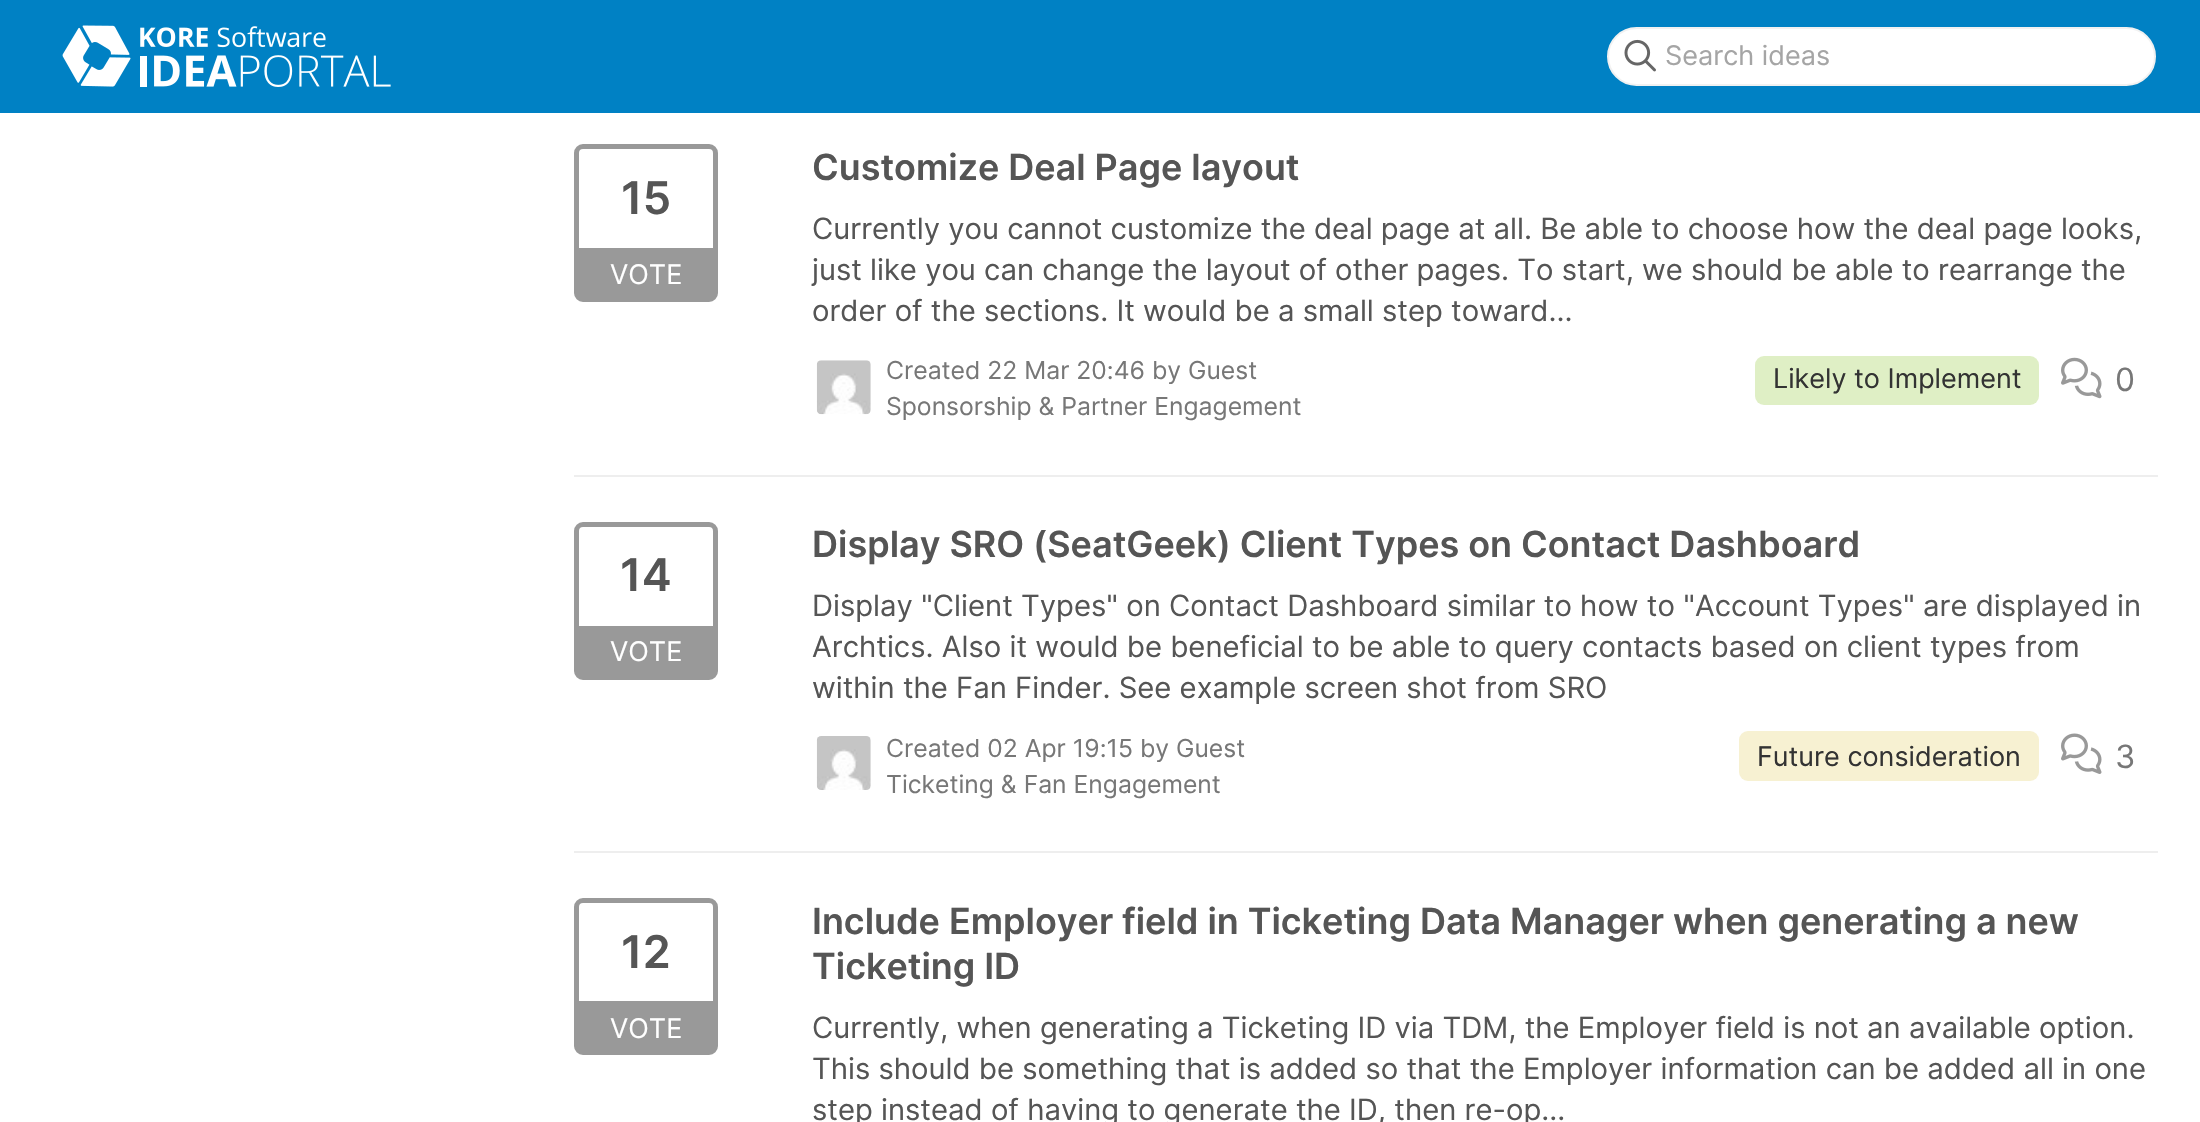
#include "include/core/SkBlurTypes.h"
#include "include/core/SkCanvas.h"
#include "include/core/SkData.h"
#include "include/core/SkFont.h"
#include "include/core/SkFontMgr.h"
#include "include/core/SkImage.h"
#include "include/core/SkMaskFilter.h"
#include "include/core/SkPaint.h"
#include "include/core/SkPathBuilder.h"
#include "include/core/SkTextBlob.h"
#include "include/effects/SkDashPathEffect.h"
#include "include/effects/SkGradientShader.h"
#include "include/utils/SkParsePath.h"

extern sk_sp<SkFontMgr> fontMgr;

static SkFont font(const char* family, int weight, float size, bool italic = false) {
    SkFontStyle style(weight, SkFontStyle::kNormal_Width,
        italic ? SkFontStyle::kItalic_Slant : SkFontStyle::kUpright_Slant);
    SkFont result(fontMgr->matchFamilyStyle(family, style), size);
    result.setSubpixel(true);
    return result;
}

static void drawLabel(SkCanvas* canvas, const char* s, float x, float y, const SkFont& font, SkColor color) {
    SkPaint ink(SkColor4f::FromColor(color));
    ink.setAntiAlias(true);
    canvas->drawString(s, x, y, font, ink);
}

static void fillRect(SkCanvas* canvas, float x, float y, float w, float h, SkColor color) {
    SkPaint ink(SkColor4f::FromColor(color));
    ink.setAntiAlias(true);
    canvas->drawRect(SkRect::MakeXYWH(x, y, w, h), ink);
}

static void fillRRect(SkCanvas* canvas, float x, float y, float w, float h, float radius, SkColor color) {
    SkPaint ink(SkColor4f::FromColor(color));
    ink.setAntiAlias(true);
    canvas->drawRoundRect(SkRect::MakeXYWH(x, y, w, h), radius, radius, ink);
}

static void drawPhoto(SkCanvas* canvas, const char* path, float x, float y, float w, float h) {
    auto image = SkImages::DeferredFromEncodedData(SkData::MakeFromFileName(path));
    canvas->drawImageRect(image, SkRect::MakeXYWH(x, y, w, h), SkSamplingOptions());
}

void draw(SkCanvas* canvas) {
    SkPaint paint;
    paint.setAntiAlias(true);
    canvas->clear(0xFFFFFFFF);
    fillRect(canvas, 0, 0, 2200, 113, 0xFF0081C4);
    drawPhoto(canvas, "assets/img1.png", 62, 25, 329, 62);
    paint.setColor(0xFFFFFFFF);
    canvas->drawRoundRect(SkRect::MakeXYWH(1608, 28, 547, 57), 28.5f, 28.5f, paint);
    paint.setStroke(true);
    paint.setStrokeWidth(2);
    paint.setColor(0xFFF1F1F1);
    canvas->drawRoundRect(SkRect::MakeXYWH(1608, 28, 547, 57), 28.5f, 28.5f, paint);
    drawPhoto(canvas, "assets/img2.png", 1624, 39, 32, 33);
    SkFont font1 = font("Inter", 400, 27);
    drawLabel(canvas, "Search ideas", 1665, 65, font1, 0xFFA5A5A5);
    fillRect(canvas, 574, 475, 1584, 2, 0xFFEEEEEE);
    paint.setStrokeWidth(5);
    paint.setColor(0xFF999999);
    canvas->drawRoundRect(SkRect::MakeXYWH(576.5f, 146.5f, 139, 153), 6.5f, 6.5f, paint);
    SkFont font2 = font("Inter", 600, 45);
    drawLabel(canvas, "15", 621, 214, font2, 0xFF555555);
    fillRect(canvas, 579, 248, 134, 49, 0xFF999999);
    drawLabel(canvas, "VOTE", 610, 284, font1, 0xFFFFFFFF);
    SkFont font3 = font("Inter", 600, 36);
    drawLabel(canvas, "Customize Deal Page layout", 812, 180, font3, 0xFF555555);
    SkFont font4 = font("Inter", 400, 29.25f);
    drawLabel(canvas, "Currently you cannot customize the deal page at all. Be able to choose how the deal page looks,", 812, 239, font4, 0xFF555555);
    drawLabel(canvas, "just like you can change the layout of other pages. To start, we should be able to rearrange the", 812, 280, font4, 0xFF555555);
    drawLabel(canvas, "order of the sections. It would be a small step toward...", 812, 321, font4, 0xFF555555);
    drawPhoto(canvas, "assets/img3.png", 816, 360, 55, 55);
    SkFont font5 = font("Inter", 400, 24.75f);
    drawLabel(canvas, "Created 22 Mar 20:46 by Guest", 886, 379, font5, 0xFF777777);
    drawLabel(canvas, "Sponsorship & Partner Engagement", 886, 415, font5, 0xFF777777);
    fillRRect(canvas, 1755, 356, 284, 49, 9, 0xFFDFEFC5);
    drawLabel(canvas, "Likely to Implement", 1773, 388, font1, 0xFF333333);
    drawPhoto(canvas, "assets/img4.png", 2061, 357, 41, 42);
    SkFont font6 = font("Inter", 400, 32);
    drawLabel(canvas, "0", 2115, 391, font6, 0xFF777777);
    fillRect(canvas, 574, 851, 1584, 2, 0xFFEEEEEE);
    canvas->drawRoundRect(SkRect::MakeXYWH(576.5f, 524.5f, 139, 153), 6.5f, 6.5f, paint);
    drawLabel(canvas, "14", 620, 591, font2, 0xFF555555);
    fillRect(canvas, 579, 626, 134, 49, 0xFF999999);
    drawLabel(canvas, "VOTE", 610, 661, font1, 0xFFFFFFFF);
    drawLabel(canvas, "Display SRO (SeatGeek) Client Types on Contact Dashboard", 812, 557, font3, 0xFF555555);
    drawLabel(canvas, "Display \"Client Types\" on Contact Dashboard similar to how to \"Account Types\" are displayed in", 812, 616, font4, 0xFF555555);
    drawLabel(canvas, "Archtics. Also it would be beneficial to be able to query contacts based on client types from", 812, 657, font4, 0xFF555555);
    drawLabel(canvas, "within the Fan Finder. See example screen shot from SRO", 812, 698, font4, 0xFF555555);
    drawPhoto(canvas, "assets/img5.png", 816, 736, 55, 54);
    drawLabel(canvas, "Created 02 Apr 19:15 by Guest", 886, 757, font5, 0xFF777777);
    drawLabel(canvas, "Ticketing & Fan Engagement", 886, 793, font5, 0xFF777777);
    fillRRect(canvas, 1739, 731, 300, 50, 9, 0xFFF7F1D2);
    drawLabel(canvas, "Future consideration", 1757, 766, font1, 0xFF333333);
    drawPhoto(canvas, "assets/img6.png", 2061, 733, 41, 41);
    drawLabel(canvas, "3", 2115, 768, font6, 0xFF777777);
    canvas->drawRoundRect(SkRect::MakeXYWH(576.5f, 900.5f, 139, 152), 6.5f, 6.5f, paint);
    drawLabel(canvas, "12", 621, 968, font2, 0xFF555555);
    fillRect(canvas, 579, 1001, 134, 49, 0xFF999999);
    drawLabel(canvas, "VOTE", 610, 1038, font1, 0xFFFFFFFF);
    drawLabel(canvas, "Include Employer field in Ticketing Data Manager when generating a new", 812, 934, font3, 0xFF555555);
    drawLabel(canvas, "Ticketing ID", 812, 979, font3, 0xFF555555);
    drawLabel(canvas, "Currently, when generating a Ticketing ID via TDM, the Employer field is not an available option.", 812, 1038, font4, 0xFF555555);
    drawLabel(canvas, "This should be something that is added so that the Employer information can be added all in one", 812, 1079, font4, 0xFF555555);
    drawLabel(canvas, "step instead of having to generate the ID, then re-op...", 812, 1120, font4, 0xFF555555);
}
